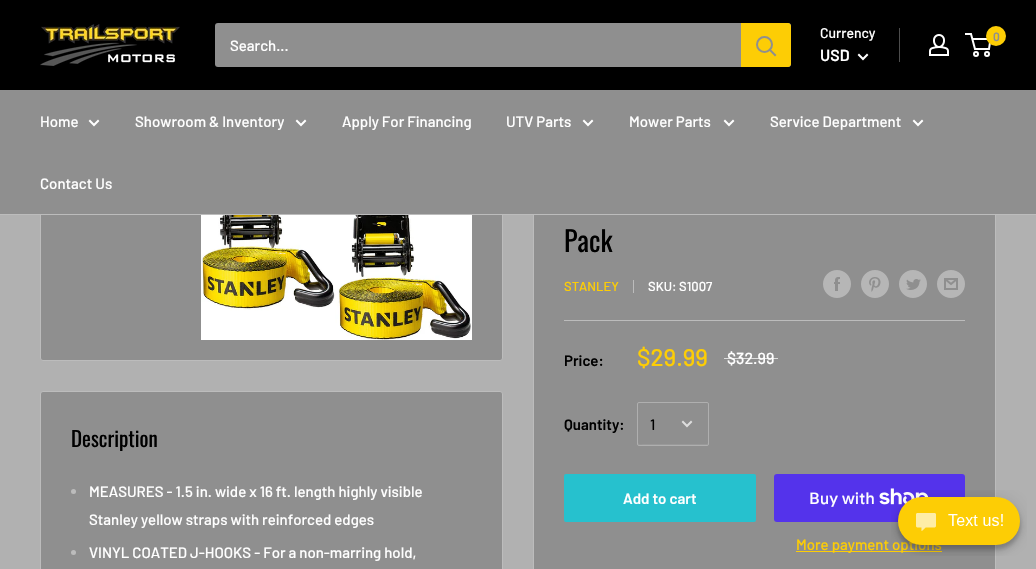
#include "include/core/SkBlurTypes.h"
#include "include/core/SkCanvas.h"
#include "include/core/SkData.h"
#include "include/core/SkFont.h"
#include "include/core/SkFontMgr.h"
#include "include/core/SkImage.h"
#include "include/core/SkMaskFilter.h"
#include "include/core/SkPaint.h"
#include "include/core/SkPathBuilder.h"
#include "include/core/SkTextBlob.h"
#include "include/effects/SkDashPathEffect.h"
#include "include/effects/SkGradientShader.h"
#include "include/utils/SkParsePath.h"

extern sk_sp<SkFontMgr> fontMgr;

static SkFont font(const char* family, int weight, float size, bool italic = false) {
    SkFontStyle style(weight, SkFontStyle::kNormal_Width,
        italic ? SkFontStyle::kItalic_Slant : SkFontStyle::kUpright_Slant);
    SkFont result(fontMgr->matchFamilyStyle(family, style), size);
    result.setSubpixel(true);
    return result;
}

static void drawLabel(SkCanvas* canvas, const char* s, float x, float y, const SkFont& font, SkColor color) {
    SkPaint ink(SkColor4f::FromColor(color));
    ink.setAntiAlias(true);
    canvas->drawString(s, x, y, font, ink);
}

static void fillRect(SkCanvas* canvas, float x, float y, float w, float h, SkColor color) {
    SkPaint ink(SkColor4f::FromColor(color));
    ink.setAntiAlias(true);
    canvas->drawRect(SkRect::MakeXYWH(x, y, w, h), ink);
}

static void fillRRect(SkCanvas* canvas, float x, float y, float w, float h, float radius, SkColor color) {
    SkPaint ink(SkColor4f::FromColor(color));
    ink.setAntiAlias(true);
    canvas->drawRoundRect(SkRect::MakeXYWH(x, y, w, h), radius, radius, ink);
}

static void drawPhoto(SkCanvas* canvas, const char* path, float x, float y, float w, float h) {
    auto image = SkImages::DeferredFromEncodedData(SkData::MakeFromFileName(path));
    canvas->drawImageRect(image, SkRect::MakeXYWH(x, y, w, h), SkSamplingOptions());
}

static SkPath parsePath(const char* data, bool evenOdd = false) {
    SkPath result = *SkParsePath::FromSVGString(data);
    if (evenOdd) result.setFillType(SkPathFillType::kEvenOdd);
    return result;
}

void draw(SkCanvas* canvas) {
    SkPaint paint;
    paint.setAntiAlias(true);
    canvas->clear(0xFFB1B1B1);
    paint.setColor(0xFF8F8F8F);
    canvas->drawRoundRect(SkRect::MakeXYWH(40.5f, 80.5f, 462, 280), 2.5f, 2.5f, paint);
    paint.setStroke(true);
    paint.setStrokeWidth(1);
    paint.setColor(0xFFBCBCBC);
    canvas->drawRoundRect(SkRect::MakeXYWH(40.5f, 80.5f, 462, 280), 2.5f, 2.5f, paint);
    fillRect(canvas, 534, 215, 461, 354, 0xFF8F8F8F);
    canvas->drawRect(SkRect::MakeXYWH(533.5f, 80.5f, 462, 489), paint);
    fillRect(canvas, 0, 0, 1036, 90, 0xFF000000);
    drawPhoto(canvas, "assets/img1.png", 40, 24, 140, 42);
    fillRRect(canvas, 215, 23, 576, 44, 3, 0xFF8F8F8F);
    SkFont font1 = font("Barlow", 500, 15);
    drawLabel(canvas, "Search...", 230, 51, font1, 0xFFFFFFFF);
    paint.setStroke(false);
    paint.setColor(0xFFFDCD05);
    canvas->drawPath(parsePath("M741 23H788C789.5 23 791 24.5 791 26V64C791 65.5 789.5 67 788 67H741Z"), paint);
    paint.setStroke(true);
    paint.setStrokeWidth(2);
    paint.setStrokeCap(SkPaint::kSquare_Cap);
    paint.setColor(0xFF8F8F8F);
    canvas->drawPath(parsePath("M775 55L770 50"), paint);
    paint.setStrokeCap(SkPaint::kButt_Cap);
    canvas->drawCircle(764.5f, 44.5f, 7.5f, paint);
    SkFont font2 = font("Barlow", 500, 14);
    drawLabel(canvas, "Currency", 820, 38, font2, 0xFFFFFFFF);
    fillRect(canvas, 899, 28, 1, 34, 0xFF4D4D4D);
    SkFont font3 = font("Barlow", 600, 16);
    drawLabel(canvas, "USD", 820, 61, font3, 0xFFFFFFFF);
    paint.setStrokeCap(SkPaint::kSquare_Cap);
    paint.setColor(0xFFFFFFFF);
    canvas->drawPath(parsePath("M867 55L863 59L859 55"), paint);
    drawPhoto(canvas, "assets/img2.png", 929, 34, 20, 22);
    paint.setStrokeCap(SkPaint::kButt_Cap);
    canvas->drawCircle(976, 54, 2, paint);
    canvas->drawCircle(987, 54, 2, paint);
    canvas->drawPath(parsePath("M972.5 39H990.5L989 49H975L971 34H965"), paint);
    paint.setStroke(false);
    paint.setColor(0xFFFDCD05);
    canvas->drawCircle(996, 36, 10, paint);
    SkFont font4 = font("Barlow", 600, 12);
    drawLabel(canvas, "0", 993, 41, font4, 0xFF8F8F8F);
    fillRect(canvas, 0, 90, 1036, 124, 0xFF8F8F8F);
    fillRect(canvas, 0, 214, 1036, 1, 0xFFBCBCBC);
    drawLabel(canvas, "Home", 40, 127, font1, 0xFFFFFFFF);
    paint.setStroke(true);
    paint.setStrokeCap(SkPaint::kSquare_Cap);
    paint.setColor(0xFFFFFFFF);
    canvas->drawPath(parsePath("M98 121L94 125L90 121"), paint);
    drawLabel(canvas, "Showroom & Inventory", 135, 127, font1, 0xFFFFFFFF);
    canvas->drawPath(parsePath("M305 121L301 125L297 121"), paint);
    drawLabel(canvas, "Apply For Financing", 342, 127, font1, 0xFFFFFFFF);
    drawLabel(canvas, "UTV Parts", 506, 127, font1, 0xFFFFFFFF);
    canvas->drawPath(parsePath("M592 121L588 125L584 121"), paint);
    drawLabel(canvas, "Mower Parts", 629, 127, font1, 0xFFFFFFFF);
    canvas->drawPath(parsePath("M733 121L729 125L725 121"), paint);
    drawLabel(canvas, "Service Department", 770, 127, font1, 0xFFFFFFFF);
    canvas->drawPath(parsePath("M922 121L918 125L914 121"), paint);
    drawLabel(canvas, "Contact Us", 40, 189, font1, 0xFFFFFFFF);
    drawPhoto(canvas, "assets/img3.png", 201, 215, 271, 125);
    SkFont font5 = font("Oswald", 400, 28);
    drawLabel(canvas, "Pack", 564, 252, font5, 0xFF000000);
    SkFont font6 = font("Barlow", 500, 13);
    drawLabel(canvas, "STANLEY", 564, 291, font6, 0xFFFDCD05);
    fillRect(canvas, 633, 280, 1, 13, 0xFFBCBCBC);
    drawLabel(canvas, "SKU: S1007", 648, 291, font6, 0xFFFFFFFF);
    drawPhoto(canvas, "assets/img4.png", 823, 270, 28, 28);
    drawPhoto(canvas, "assets/img5.png", 861, 270, 28, 28);
    drawPhoto(canvas, "assets/img6.png", 899, 270, 28, 28);
    drawPhoto(canvas, "assets/img7.png", 937, 270, 28, 28);
    fillRect(canvas, 564, 320, 401, 1, 0xFFBCBCBC);
    SkFont font7 = font("Barlow", 600, 15);
    drawLabel(canvas, "Price:", 564, 366, font7, 0xFF000000);
    SkFont font8 = font("Barlow", 500, 24);
    drawLabel(canvas, "$29.99", 637, 366, font8, 0xFFFDCD05);
    SkFont font9 = font("Barlow", 500, 16);
    drawLabel(canvas, "$32.99", 727, 364, font9, 0xFFFFFFFF);
    fillRect(canvas, 724, 358, 54, 1, 0xB3FFFFFF);
    drawLabel(canvas, "Quantity:", 564, 430, font7, 0xFF000000);
    paint.setStroke(false);
    paint.setColor(0xFF999999);
    canvas->drawPath(parsePath("M638 443C638 444 638 445 639 445H696C699 445 708 448 708 443L707 444H643C642 444 639 445 638 443Z"), paint);
    paint.setStroke(true);
    paint.setStrokeWidth(1);
    paint.setStrokeCap(SkPaint::kButt_Cap);
    paint.setColor(0xFFAFAFAF);
    canvas->drawRoundRect(SkRect::MakeXYWH(637.5f, 402.5f, 71, 43), 1.5f, 1.5f, paint);
    drawLabel(canvas, "1", 650, 430, font1, 0xFF000000);
    paint.setStrokeWidth(2);
    paint.setStrokeCap(SkPaint::kSquare_Cap);
    paint.setColor(0xFFDDDDDD);
    canvas->drawPath(parsePath("M691 422L687 426L683 422"), paint);
    fillRRect(canvas, 564, 474, 192, 48, 2, 0xFF26C1CE);
    drawLabel(canvas, "Add to cart", 623, 504, font7, 0xFFFFFFFF);
    fillRRect(canvas, 774, 474, 191, 48, 3, 0xFF5433EB);
    SkFont font10 = font("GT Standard", 500, 16);
    drawLabel(canvas, "Buy with", 809, 504, font10, 0xFFFFFFFF);
    drawPhoto(canvas, "assets/img8.png", 879, 488, 50, 17);
    fillRect(canvas, 796, 551, 146, 1, 0xFFFDCD05);
    drawLabel(canvas, "More payment options", 796, 550, font1, 0xFFFDCD05);
    paint.setStroke(false);
    paint.setColor(0xFF8F8F8F);
    canvas->drawRoundRect(SkRect::MakeXYWH(40.5f, 391.5f, 462, 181), 2.5f, 2.5f, paint);
    paint.setStroke(true);
    paint.setStrokeWidth(1);
    paint.setStrokeCap(SkPaint::kButt_Cap);
    paint.setColor(0xFFBCBCBC);
    canvas->drawRoundRect(SkRect::MakeXYWH(40.5f, 391.5f, 462, 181), 2.5f, 2.5f, paint);
    SkFont font11 = font("Oswald", 400, 21);
    drawLabel(canvas, "Description", 71, 447, font11, 0xFF000000);
    paint.setStroke(false);
    canvas->drawCircle(73.5f, 491.5f, 2.5f, paint);
    drawLabel(canvas, "MEASURES - 1.5 in. wide x 16 ft. length highly visible", 89, 497, font1, 0xFFFFFFFF);
    drawLabel(canvas, "Stanley yellow straps with reinforced edges", 89, 525, font1, 0xFFFFFFFF);
    canvas->drawCircle(73.5f, 552.5f, 2.5f, paint);
    drawLabel(canvas, "VINYL COATED J-HOOKS - For a non-marring hold,", 89, 558, font1, 0xFFFFFFFF);
    drawPhoto(canvas, "assets/img9.png", 891, 490, 136, 66);
}
